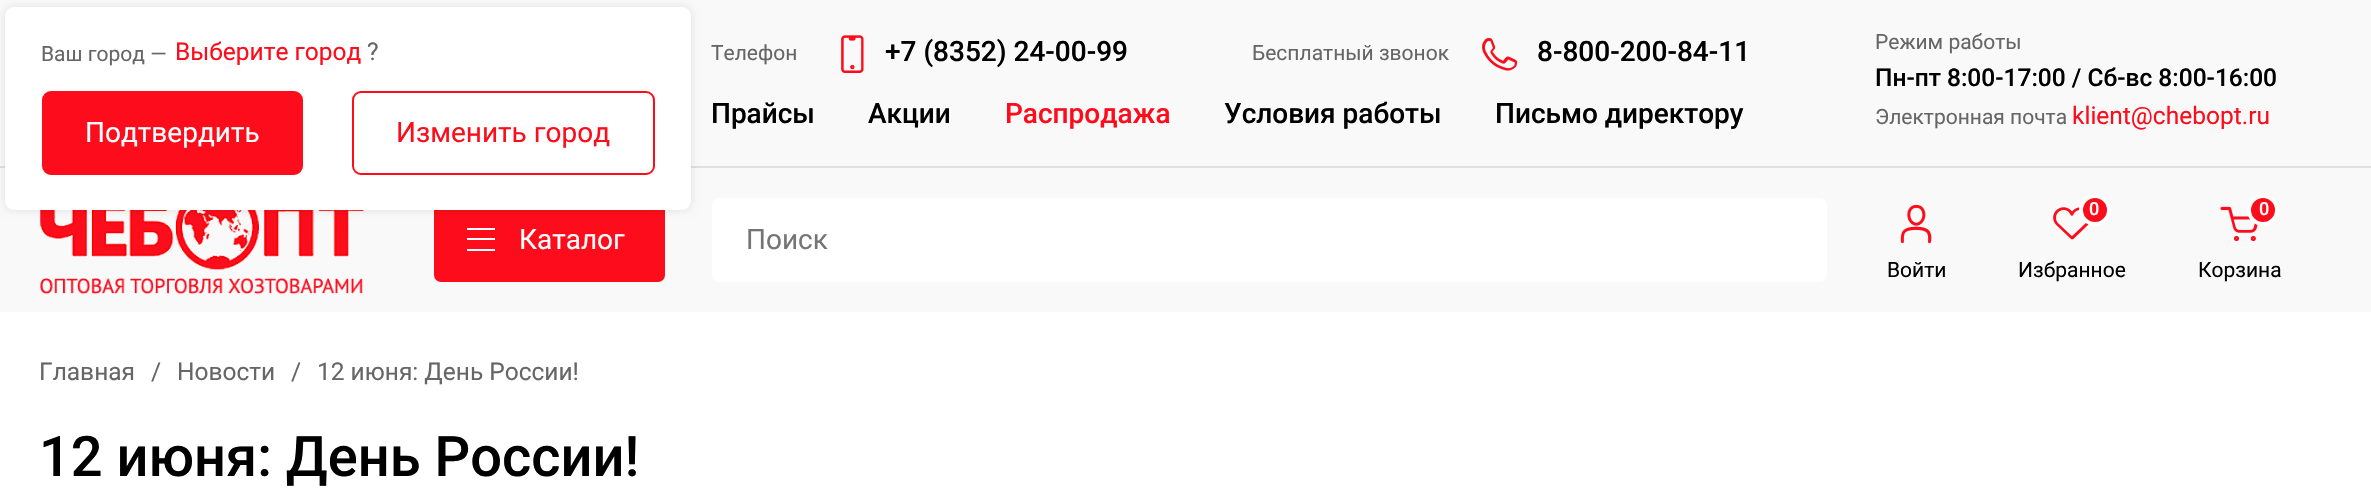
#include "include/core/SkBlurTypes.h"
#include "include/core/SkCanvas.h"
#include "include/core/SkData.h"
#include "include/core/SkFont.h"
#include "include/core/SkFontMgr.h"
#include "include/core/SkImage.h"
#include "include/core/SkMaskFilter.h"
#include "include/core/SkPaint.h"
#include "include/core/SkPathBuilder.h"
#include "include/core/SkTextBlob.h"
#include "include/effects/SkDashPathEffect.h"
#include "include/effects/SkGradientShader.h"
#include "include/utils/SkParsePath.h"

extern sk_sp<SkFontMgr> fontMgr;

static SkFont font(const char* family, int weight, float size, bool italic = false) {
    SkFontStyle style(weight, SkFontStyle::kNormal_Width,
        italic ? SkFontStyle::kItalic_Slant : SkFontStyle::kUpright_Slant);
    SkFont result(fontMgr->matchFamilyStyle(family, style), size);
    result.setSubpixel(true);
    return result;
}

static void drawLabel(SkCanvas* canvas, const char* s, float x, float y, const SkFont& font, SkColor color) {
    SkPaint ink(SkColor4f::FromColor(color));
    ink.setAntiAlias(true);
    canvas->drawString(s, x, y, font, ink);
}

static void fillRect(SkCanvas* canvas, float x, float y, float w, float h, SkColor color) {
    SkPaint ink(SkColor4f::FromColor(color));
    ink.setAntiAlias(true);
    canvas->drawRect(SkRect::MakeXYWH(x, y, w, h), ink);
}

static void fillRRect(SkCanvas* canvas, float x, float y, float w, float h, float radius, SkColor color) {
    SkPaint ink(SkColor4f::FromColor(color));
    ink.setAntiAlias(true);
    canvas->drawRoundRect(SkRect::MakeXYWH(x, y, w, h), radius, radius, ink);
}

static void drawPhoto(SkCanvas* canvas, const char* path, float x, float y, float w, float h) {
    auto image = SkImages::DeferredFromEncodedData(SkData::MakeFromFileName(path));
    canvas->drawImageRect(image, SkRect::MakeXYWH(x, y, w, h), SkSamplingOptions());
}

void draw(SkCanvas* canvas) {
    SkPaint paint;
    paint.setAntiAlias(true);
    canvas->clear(0xFFFFFFFF);
    fillRect(canvas, 0, 0, 2371, 312, 0xFFF9F9FA);
    fillRect(canvas, 0, 166, 2371, 2, 0xFFE0E0E0);
    drawPhoto(canvas, "assets/img3.png", 40, 210, 324, 84);
    fillRRect(canvas, 434, 196, 231, 86, 7, 0xFFFD0D1B);
    paint.setColor(0x1A000000);
    paint.setMaskFilter(SkMaskFilter::MakeBlur(kNormal_SkBlurStyle, 4.5f));
    canvas->drawRoundRect(SkRect::MakeXYWH(5, 7, 686, 203), 9, 9, paint);
    paint.setMaskFilter(nullptr);
    fillRRect(canvas, 5, 7, 686, 203, 9, 0xFFFFFFFF);
    SkFont font1 = font("Roboto", 400, 21);
    drawLabel(canvas, "Ваш город —", 41, 61, font1, 0xFF666666);
    SkFont font2 = font("Roboto", 400, 24.5f);
    drawLabel(canvas, "Выберите город", 175, 60, font2, 0xFFFD0D1B);
    drawLabel(canvas, "?", 367, 60, font2, 0xFF666666);
    paint.setColor(0xFFFD0D1B);
    canvas->drawRoundRect(SkRect::MakeXYWH(43, 92, 259, 82), 8, 8, paint);
    paint.setStroke(true);
    paint.setStrokeWidth(2);
    canvas->drawRoundRect(SkRect::MakeXYWH(43, 92, 259, 82), 8, 8, paint);
    SkFont font3 = font("Roboto", 400, 28);
    drawLabel(canvas, "Подтвердить", 85, 142, font3, 0xFFFFFFFF);
    canvas->drawRoundRect(SkRect::MakeXYWH(353, 92, 301, 82), 8, 8, paint);
    drawLabel(canvas, "Изменить город", 396, 142, font3, 0xFFFD0D1B);
    drawLabel(canvas, "Телефон", 711, 60, font1, 0xFF666666);
    drawPhoto(canvas, "assets/img1.png", 841, 35, 23, 38);
    SkFont font4 = font("Roboto", 500, 28);
    drawLabel(canvas, "+7 (8352) 24-00-99", 885, 61, font4, 0xFF000000);
    drawLabel(canvas, "Бесплатный звонок", 1252, 60, font1, 0xFF666666);
    drawPhoto(canvas, "assets/img2.png", 1482, 38, 36, 33);
    drawLabel(canvas, "8-800-200-84-11", 1537, 61, font4, 0xFF000000);
    drawLabel(canvas, "Прайсы", 711, 123, font4, 0xFF000000);
    drawLabel(canvas, "Акции", 868, 123, font4, 0xFF000000);
    drawLabel(canvas, "Распродажа", 1005, 123, font4, 0xFFFD0D1B);
    drawLabel(canvas, "Условия работы", 1224, 123, font4, 0xFF000000);
    drawLabel(canvas, "Письмо директору", 1495, 123, font4, 0xFF000000);
    drawLabel(canvas, "Режим работы", 1875, 49, font1, 0xFF666666);
    SkFont font5 = font("Roboto", 500, 24.5f);
    drawLabel(canvas, "Пн-пт 8:00-17:00 / Сб-вс 8:00-16:00", 1875, 86, font5, 0xFF000000);
    drawLabel(canvas, "Электронная почта", 1875, 124, font1, 0xFF666666);
    drawLabel(canvas, "klient@chebopt.ru", 2072, 124, font2, 0xFFFD0D1B);
    fillRect(canvas, 467, 228, 28, 2, 0xFFFFFFFF);
    fillRect(canvas, 467, 238, 28, 2, 0xFFFFFFFF);
    fillRect(canvas, 467, 249, 28, 2, 0xFFFFFFFF);
    drawLabel(canvas, "Каталог", 519, 249, font3, 0xFFFFFFFF);
    fillRRect(canvas, 712, 198, 1115, 84, 7, 0xFFFFFFFF);
    drawLabel(canvas, "Поиск", 746, 249, font3, 0xFF757575);
    drawPhoto(canvas, "assets/img4.png", 1900, 204, 32, 40);
    drawLabel(canvas, "Войти", 1887, 277, font1, 0xFF000000);
    drawPhoto(canvas, "assets/img5.png", 2053, 207, 36, 33);
    paint.setStroke(false);
    canvas->drawCircle(2095, 210, 14, paint);
    paint.setStroke(true);
    paint.setStrokeWidth(4);
    paint.setColor(0xFFFFFFFF);
    canvas->drawCircle(2095, 210, 14, paint);
    SkFont font6 = font("Roboto", 500, 18);
    drawLabel(canvas, "0", 2089, 215, font6, 0xFFFFFFFF);
    drawLabel(canvas, "Избранное", 2018, 277, font1, 0xFF000000);
    drawPhoto(canvas, "assets/img6.png", 2220, 206, 38, 36);
    paint.setStroke(false);
    paint.setColor(0xFFFD0D1B);
    canvas->drawCircle(2263, 210, 14, paint);
    paint.setStroke(true);
    paint.setColor(0xFFFFFFFF);
    canvas->drawCircle(2263, 210, 14, paint);
    drawLabel(canvas, "0", 2259, 215, font6, 0xFFFFFFFF);
    drawLabel(canvas, "Корзина", 2198, 277, font1, 0xFF000000);
    drawLabel(canvas, "Главная", 39, 380, font2, 0xFF666666);
    drawLabel(canvas, "/", 151, 380, font2, 0xFF666666);
    drawLabel(canvas, "Новости", 177, 380, font2, 0xFF666666);
    drawLabel(canvas, "/", 291, 380, font2, 0xFF666666);
    drawLabel(canvas, "12 июня: День России!", 317, 380, font2, 0xFF666666);
    SkFont font7 = font("Roboto", 500, 56);
    drawLabel(canvas, "12 июня: День России!", 39, 476, font7, 0xFF000000);
}
